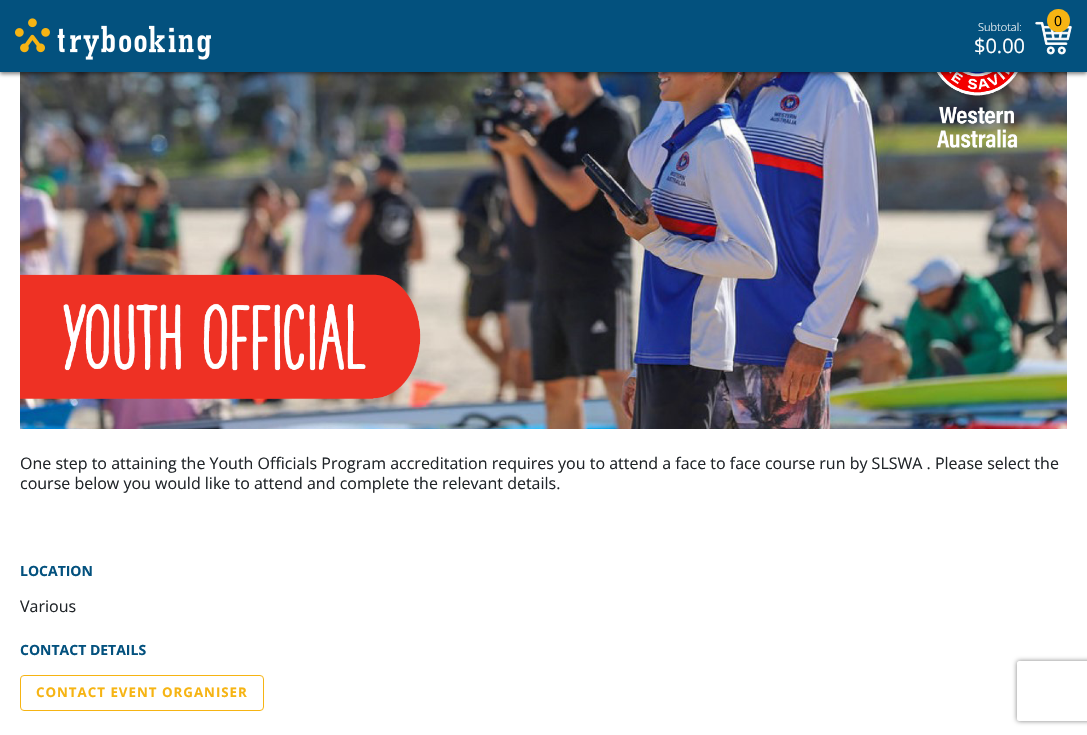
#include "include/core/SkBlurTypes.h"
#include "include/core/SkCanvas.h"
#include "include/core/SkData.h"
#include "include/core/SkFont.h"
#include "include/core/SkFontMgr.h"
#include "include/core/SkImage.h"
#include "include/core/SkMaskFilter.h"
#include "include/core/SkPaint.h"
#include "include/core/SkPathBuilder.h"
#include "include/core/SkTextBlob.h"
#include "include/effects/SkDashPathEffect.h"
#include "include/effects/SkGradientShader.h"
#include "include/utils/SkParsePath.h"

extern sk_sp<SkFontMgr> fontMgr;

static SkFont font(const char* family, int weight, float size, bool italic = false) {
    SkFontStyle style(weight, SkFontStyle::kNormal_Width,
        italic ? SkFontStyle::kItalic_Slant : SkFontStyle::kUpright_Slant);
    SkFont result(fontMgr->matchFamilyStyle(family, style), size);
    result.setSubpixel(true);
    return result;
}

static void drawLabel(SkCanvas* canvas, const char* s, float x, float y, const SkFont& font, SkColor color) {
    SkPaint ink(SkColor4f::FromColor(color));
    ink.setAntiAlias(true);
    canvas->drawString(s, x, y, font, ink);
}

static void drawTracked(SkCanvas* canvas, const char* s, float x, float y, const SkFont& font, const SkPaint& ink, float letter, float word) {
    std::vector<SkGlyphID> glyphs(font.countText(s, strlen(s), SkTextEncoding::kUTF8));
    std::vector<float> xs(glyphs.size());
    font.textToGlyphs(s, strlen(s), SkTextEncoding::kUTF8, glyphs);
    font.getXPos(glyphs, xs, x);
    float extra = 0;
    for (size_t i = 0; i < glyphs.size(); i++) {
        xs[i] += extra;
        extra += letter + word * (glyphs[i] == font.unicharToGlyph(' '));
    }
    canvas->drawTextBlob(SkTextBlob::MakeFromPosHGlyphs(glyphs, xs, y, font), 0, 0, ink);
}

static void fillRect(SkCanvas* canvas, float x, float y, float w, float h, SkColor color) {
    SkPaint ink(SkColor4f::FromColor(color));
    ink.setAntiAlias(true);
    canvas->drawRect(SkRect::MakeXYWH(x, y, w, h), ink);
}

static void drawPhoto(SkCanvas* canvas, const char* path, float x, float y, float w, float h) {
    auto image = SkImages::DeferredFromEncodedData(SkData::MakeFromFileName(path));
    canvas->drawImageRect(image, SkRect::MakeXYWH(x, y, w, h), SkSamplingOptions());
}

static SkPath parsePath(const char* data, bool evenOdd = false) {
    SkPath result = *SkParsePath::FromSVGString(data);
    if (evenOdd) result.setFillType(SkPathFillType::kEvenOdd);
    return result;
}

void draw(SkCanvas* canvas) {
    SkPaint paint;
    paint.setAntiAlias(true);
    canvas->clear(0xFFFFFFFF);
    drawPhoto(canvas, "assets/img3.png", 20, 72, 1047, 357);
    paint.setColor(0x80000000);
    paint.setMaskFilter(SkMaskFilter::MakeBlur(kNormal_SkBlurStyle, 2));
    canvas->drawRect(SkRect::MakeXYWH(0, 2, 1087, 72), paint);
    paint.setMaskFilter(nullptr);
    fillRect(canvas, 0, 0, 1087, 72, 0xFF03517E);
    drawPhoto(canvas, "assets/img1.png", 15, 18, 196, 42);
    SkFont font1 = font("Open Sans", 300, 11);
    drawLabel(canvas, "Subtotal:", 978, 31, font1, 0xFFFFFFFF);
    SkFont font2 = font("Open Sans", 400, 20);
    drawLabel(canvas, "$0.00", 974, 53, font2, 0xFFFFFFFF);
    drawPhoto(canvas, "assets/img2.png", 1035, 21, 37, 34);
    paint.setColor(0xFFF6B413);
    canvas->drawCircle(1058.5f, 20.5f, 11.5f, paint);
    SkFont font3 = font("Open Sans", 400, 14);
    drawLabel(canvas, "0", 1054, 26, font3, 0xFF000000);
    SkFont font4 = font("Open Sans", 400, 16);
    drawLabel(canvas, "One step to attaining the Youth Officials Program accreditation requires you to attend a face to face course run by SLSWA . Please select the", 20, 469, font4, 0xFF212529);
    drawLabel(canvas, "course below you would like to attend and complete the relevant details.", 20, 489, font4, 0xFF212529);
    SkFont font5 = font("Open Sans", 700, 14);
    drawLabel(canvas, "LOCATION", 20, 576, font5, 0xFF03517E);
    drawLabel(canvas, "Various", 20, 612, font4, 0xFF212529);
    drawLabel(canvas, "CONTACT DETAILS", 20, 655, font5, 0xFF03517E);
    paint.setStroke(true);
    paint.setStrokeWidth(1);
    canvas->drawRoundRect(SkRect::MakeXYWH(20.5f, 675.5f, 243, 35), 3.5f, 3.5f, paint);
    SkFont font6 = font("Open Sans", 700, 13.3f);
    paint.setStroke(false);
    drawTracked(canvas, "CONTACT EVENT ORGANISER", 36, 697, font6, paint, 1, 0);
    canvas->save();
    canvas->clipPath(parsePath("M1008 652H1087V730H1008ZM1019 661H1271C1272 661 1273 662 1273 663V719C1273 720 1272 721 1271 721H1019C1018 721 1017 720 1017 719V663C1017 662 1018 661 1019 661Z", true), true);
    paint.setColor(0xFF808080);
    paint.setMaskFilter(SkMaskFilter::MakeBlur(kNormal_SkBlurStyle, 2.5f));
    canvas->drawRoundRect(SkRect::MakeXYWH(1017, 661, 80, 60), 2, 2, paint);
    paint.setMaskFilter(nullptr);
    canvas->restore();
}
